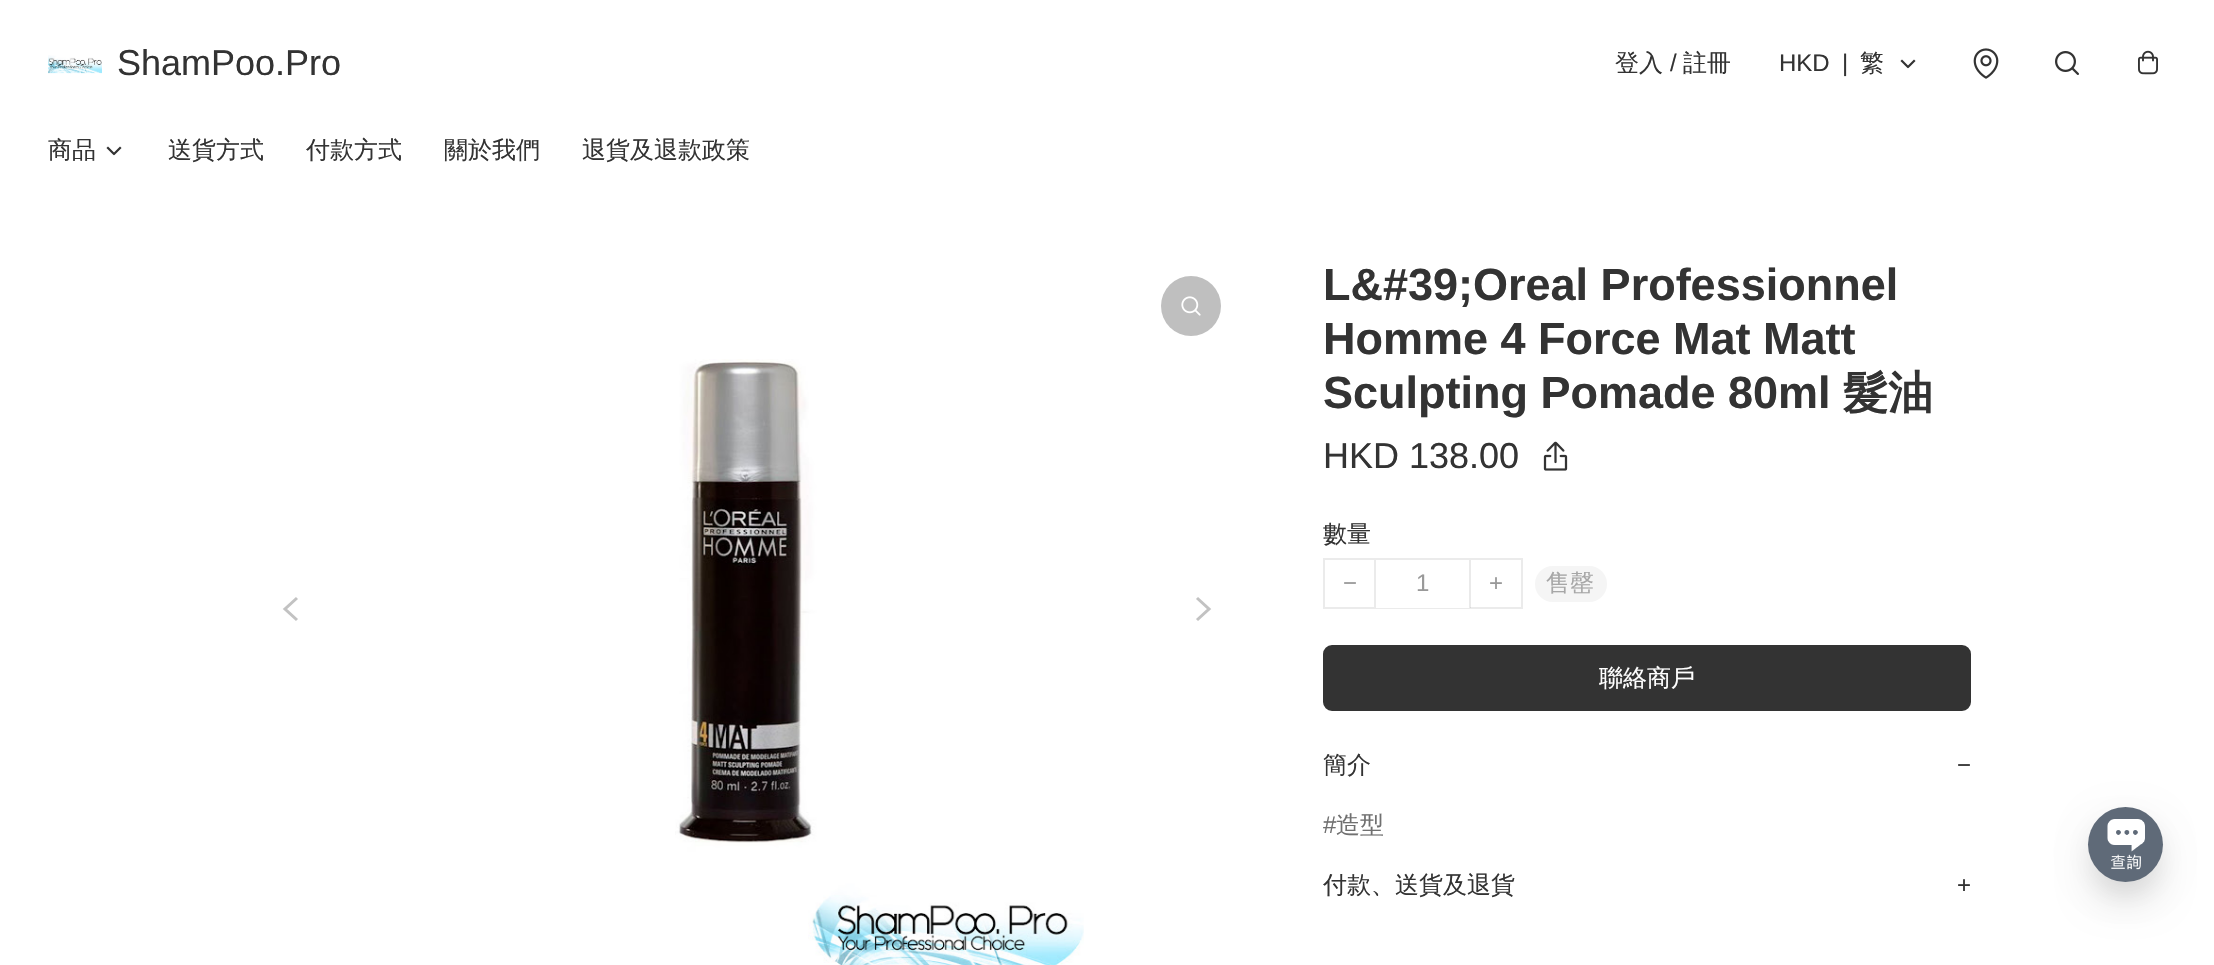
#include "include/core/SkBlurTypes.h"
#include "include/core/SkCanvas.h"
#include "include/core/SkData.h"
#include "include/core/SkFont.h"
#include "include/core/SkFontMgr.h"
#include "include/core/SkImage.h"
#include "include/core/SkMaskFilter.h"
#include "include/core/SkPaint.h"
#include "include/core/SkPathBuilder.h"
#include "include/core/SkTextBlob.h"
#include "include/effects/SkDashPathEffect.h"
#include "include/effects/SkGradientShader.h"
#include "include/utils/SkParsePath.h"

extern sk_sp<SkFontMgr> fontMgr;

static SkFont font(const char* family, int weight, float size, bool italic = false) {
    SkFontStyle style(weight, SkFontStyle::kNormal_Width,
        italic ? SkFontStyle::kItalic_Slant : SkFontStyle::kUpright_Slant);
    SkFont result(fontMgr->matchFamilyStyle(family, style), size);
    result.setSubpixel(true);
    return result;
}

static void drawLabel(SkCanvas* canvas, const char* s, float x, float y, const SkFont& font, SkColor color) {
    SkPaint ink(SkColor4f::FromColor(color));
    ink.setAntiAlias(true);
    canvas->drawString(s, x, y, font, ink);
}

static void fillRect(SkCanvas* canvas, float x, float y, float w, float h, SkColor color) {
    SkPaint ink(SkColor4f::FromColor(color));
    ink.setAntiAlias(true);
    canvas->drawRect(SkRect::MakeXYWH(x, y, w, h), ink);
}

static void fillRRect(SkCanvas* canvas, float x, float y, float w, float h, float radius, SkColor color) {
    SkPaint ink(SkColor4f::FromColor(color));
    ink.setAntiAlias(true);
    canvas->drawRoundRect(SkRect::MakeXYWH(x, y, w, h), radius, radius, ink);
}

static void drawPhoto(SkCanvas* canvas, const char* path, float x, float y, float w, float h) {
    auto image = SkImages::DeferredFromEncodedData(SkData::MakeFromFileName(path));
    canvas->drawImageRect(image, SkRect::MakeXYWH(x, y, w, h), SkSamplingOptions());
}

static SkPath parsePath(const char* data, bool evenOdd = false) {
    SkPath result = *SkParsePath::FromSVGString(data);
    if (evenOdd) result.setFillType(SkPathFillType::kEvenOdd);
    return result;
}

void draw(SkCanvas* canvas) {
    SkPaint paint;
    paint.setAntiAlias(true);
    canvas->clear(0xFFFFFFFF);
    drawPhoto(canvas, "assets/img1.png", 48, 55, 54, 19);
    SkFont font1 = font("Liberation Sans", 400, 36);
    drawLabel(canvas, "ShamPoo.Pro", 117, 75, font1, 0xFF333333);
    SkFont font2 = font("WenQuanYi Zen Hei", 500, 24);
    drawLabel(canvas, "登入", 1615, 71, font2, 0xFF333333);
    SkFont font3 = font("Liberation Sans", 400, 24);
    drawLabel(canvas, "/", 1670, 71, font3, 0xFF333333);
    drawLabel(canvas, "註冊", 1683, 71, font2, 0xFF333333);
    drawLabel(canvas, "HKD", 1779, 71, font3, 0xFF333333);
    drawLabel(canvas, "|", 1842, 71, font3, 0xFF333333);
    drawLabel(canvas, "繁", 1860, 71, font2, 0xFF333333);
    paint.setStroke(true);
    paint.setStrokeWidth(2.2f);
    paint.setStrokeCap(SkPaint::kSquare_Cap);
    paint.setStrokeJoin(SkPaint::kRound_Join);
    paint.setColor(0xFF333333);
    canvas->drawPath(parsePath("M1902 61L1908 67L1914 61"), paint);
    drawPhoto(canvas, "assets/img2.png", 1973, 48, 26, 31);
    drawPhoto(canvas, "assets/img3.png", 2055, 51, 24, 24);
    drawPhoto(canvas, "assets/img4.png", 2138, 50, 20, 25);
    drawLabel(canvas, "商品", 48, 158, font2, 0xFF333333);
    canvas->drawPath(parsePath("M108 148L114 154L120 148"), paint);
    drawLabel(canvas, "送貨方式", 168, 158, font2, 0xFF333333);
    drawLabel(canvas, "付款方式", 306, 158, font2, 0xFF333333);
    drawLabel(canvas, "關於我們", 444, 158, font2, 0xFF333333);
    drawLabel(canvas, "退貨及退款政策", 582, 158, font2, 0xFF333333);
    paint.setStroke(false);
    paint.setColor(0xFFBFBFBF);
    canvas->drawCircle(1191, 306, 30, paint);
    drawPhoto(canvas, "assets/img5.png", 1181, 296, 20, 20);
    paint.setStroke(true);
    paint.setStrokeWidth(3);
    paint.setStrokeCap(SkPaint::kButt_Cap);
    paint.setStrokeJoin(SkPaint::kMiter_Join);
    paint.setColor(0xFFC2C2C2);
    canvas->drawPath(parsePath("M297 598L285 609L297 620"), paint);
    drawPhoto(canvas, "assets/img6.png", 675, 359, 409, 606);
    canvas->drawPath(parsePath("M1197 598L1209 609L1197 620"), paint);
    SkFont font4 = font("Liberation Sans", 700, 45);
    drawLabel(canvas, "L&#39;Oreal Professionnel", 1323, 300, font4, 0xFF333333);
    drawLabel(canvas, "Homme 4 Force Mat Matt", 1323, 354, font4, 0xFF333333);
    drawLabel(canvas, "Sculpting Pomade 80ml", 1323, 408, font4, 0xFF333333);
    SkFont font5 = font("WenQuanYi Zen Hei", 700, 45);
    drawLabel(canvas, "髮油", 1843, 408, font5, 0xFF333333);
    drawLabel(canvas, "HKD 138.00", 1323, 468, font1, 0xFF333333);
    drawPhoto(canvas, "assets/img7.png", 1543, 441, 25, 30);
    drawLabel(canvas, "數量", 1323, 542, font2, 0xFF333333);
    paint.setStrokeWidth(2);
    paint.setColor(0xFFEBEBEB);
    canvas->drawRect(SkRect::MakeXYWH(1324, 559, 198, 49), paint);
    drawLabel(canvas, "−", 1343, 591, font3, 0xFF999999);
    fillRect(canvas, 1376, 607, 94, 1, 0xFFFFFFFF);
    fillRect(canvas, 1469, 560, 2, 48, 0x1A333333);
    fillRect(canvas, 1374, 560, 2, 48, 0xFFEBEBEB);
    drawLabel(canvas, "1", 1416, 591, font3, 0xFF999999);
    drawLabel(canvas, "+", 1489, 591, font3, 0xFF999999);
    fillRRect(canvas, 1535, 566, 72, 36, 18, 0xFFF5F5F5);
    drawLabel(canvas, "售罄", 1546, 591, font2, 0xFFA7A7A7);
    paint.setStroke(false);
    paint.setColor(0xFF333333);
    canvas->drawRoundRect(SkRect::MakeXYWH(1324.5f, 646.5f, 645, 63), 7.5f, 7.5f, paint);
    paint.setStroke(true);
    paint.setStrokeWidth(3);
    canvas->drawRoundRect(SkRect::MakeXYWH(1324.5f, 646.5f, 645, 63), 7.5f, 7.5f, paint);
    drawLabel(canvas, "聯絡商戶", 1599, 686, font2, 0xFFFFFFFF);
    drawLabel(canvas, "簡介", 1323, 773, font2, 0xFF333333);
    drawLabel(canvas, "−", 1957, 773, font3, 0xFF333333);
    drawLabel(canvas, "#", 1323, 833, font3, 0xFF707070);
    drawLabel(canvas, "造型", 1336, 833, font2, 0xFF707070);
    drawLabel(canvas, "付款、送貨及退貨", 1323, 893, font2, 0xFF333333);
    drawLabel(canvas, "+", 1957, 893, font3, 0xFF333333);
    paint.setStroke(false);
    paint.setColor(0x4D000000);
    paint.setMaskFilter(SkMaskFilter::MakeBlur(kNormal_SkBlurStyle, 22.5f));
    canvas->drawRoundRect(SkRect::MakeXYWH(2103, 845, 45, 45), 22.5f, 22.5f, paint);
    paint.setMaskFilter(nullptr);
    paint.setColor(0x0D000000);
    paint.setMaskFilter(SkMaskFilter::MakeBlur(kNormal_SkBlurStyle, 15));
    canvas->drawRoundRect(SkRect::MakeXYWH(2088, 815, 75, 75), 37.5f, 37.5f, paint);
    paint.setMaskFilter(nullptr);
    paint.setColor(0xFF5F6A78);
    canvas->drawCircle(2125.5f, 844.5f, 37.5f, paint);
    drawPhoto(canvas, "assets/img8.png", 2107, 819, 38, 51);
}
